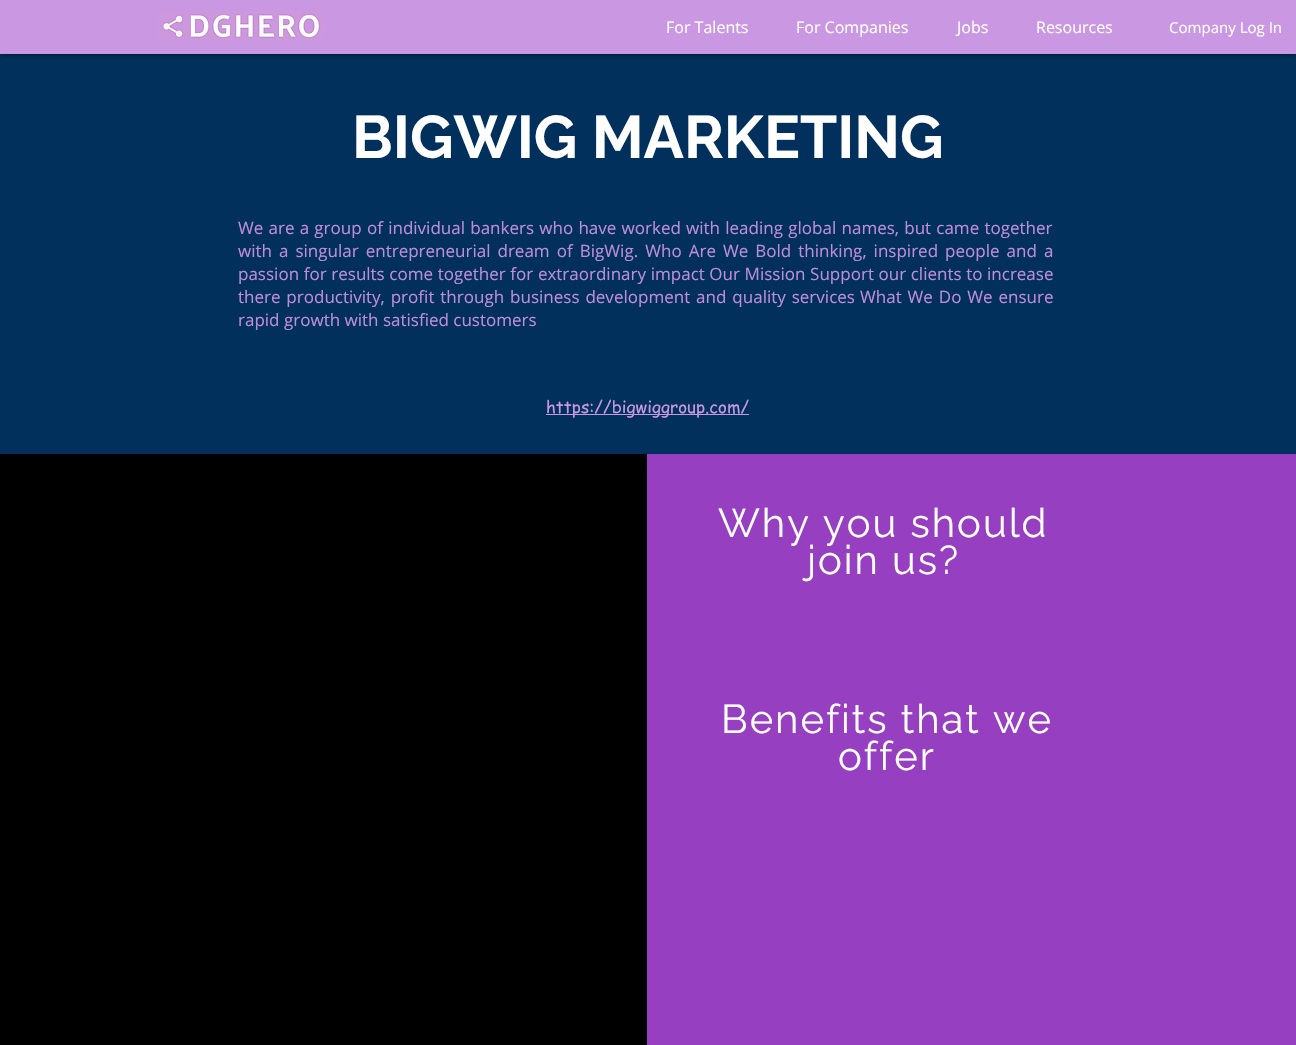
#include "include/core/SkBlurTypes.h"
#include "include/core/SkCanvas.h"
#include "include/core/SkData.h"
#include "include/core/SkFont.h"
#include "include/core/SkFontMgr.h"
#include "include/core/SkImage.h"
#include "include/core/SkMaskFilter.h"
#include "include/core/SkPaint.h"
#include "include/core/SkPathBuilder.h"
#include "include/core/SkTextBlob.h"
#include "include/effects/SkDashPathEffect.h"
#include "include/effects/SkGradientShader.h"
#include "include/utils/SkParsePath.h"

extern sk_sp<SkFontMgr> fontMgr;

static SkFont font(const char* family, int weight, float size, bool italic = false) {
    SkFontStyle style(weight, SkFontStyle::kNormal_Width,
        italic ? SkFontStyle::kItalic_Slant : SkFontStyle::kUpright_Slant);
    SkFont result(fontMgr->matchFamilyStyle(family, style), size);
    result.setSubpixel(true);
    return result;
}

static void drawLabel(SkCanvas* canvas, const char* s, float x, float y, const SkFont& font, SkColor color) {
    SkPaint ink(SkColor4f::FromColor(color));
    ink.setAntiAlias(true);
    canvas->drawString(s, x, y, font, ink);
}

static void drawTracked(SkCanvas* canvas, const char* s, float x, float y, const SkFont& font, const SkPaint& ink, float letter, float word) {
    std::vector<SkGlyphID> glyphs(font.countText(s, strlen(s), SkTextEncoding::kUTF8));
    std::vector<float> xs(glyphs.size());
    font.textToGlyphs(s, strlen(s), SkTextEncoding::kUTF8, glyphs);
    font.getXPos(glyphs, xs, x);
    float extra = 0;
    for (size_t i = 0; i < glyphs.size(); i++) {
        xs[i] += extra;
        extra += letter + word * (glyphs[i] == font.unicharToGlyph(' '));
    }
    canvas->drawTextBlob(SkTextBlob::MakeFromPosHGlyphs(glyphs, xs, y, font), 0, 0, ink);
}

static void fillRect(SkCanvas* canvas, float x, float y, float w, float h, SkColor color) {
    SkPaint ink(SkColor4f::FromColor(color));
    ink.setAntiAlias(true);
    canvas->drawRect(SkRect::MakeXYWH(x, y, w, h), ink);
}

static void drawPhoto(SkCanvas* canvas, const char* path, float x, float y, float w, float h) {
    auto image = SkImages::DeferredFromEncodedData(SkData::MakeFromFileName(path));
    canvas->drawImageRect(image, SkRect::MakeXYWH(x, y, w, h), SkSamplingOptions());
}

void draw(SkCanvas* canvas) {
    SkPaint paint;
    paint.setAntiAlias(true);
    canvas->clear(0xFF00305B);
    paint.setColor(0xB3000000);
    paint.setMaskFilter(SkMaskFilter::MakeBlur(kNormal_SkBlurStyle, 2.5f));
    canvas->drawRect(SkRect::MakeXYWH(0, 0, 1296, 54), paint);
    paint.setMaskFilter(nullptr);
    fillRect(canvas, 0, 0, 1296, 54, 0xFFCA97E2);
    drawPhoto(canvas, "assets/img1.png", 158, 11, 167, 30);
    SkFont font1 = font("Open Sans", 400, 16);
    drawLabel(canvas, "For Talents", 666, 33, font1, 0xFFFFFFFF);
    drawLabel(canvas, "For Companies", 796, 33, font1, 0xFFFFFFFF);
    drawLabel(canvas, "Jobs", 957, 33, font1, 0xFFFFFFFF);
    drawLabel(canvas, "Resources", 1036, 33, font1, 0xFFFFFFFF);
    SkFont font2 = font("Open Sans", 400, 15);
    drawLabel(canvas, "Company Log In", 1169, 33, font2, 0xFFFFFFFF);
    SkFont font3 = font("Raleway", 700, 60);
    drawLabel(canvas, "BIGWIG MARKETING", 352, 158, font3, 0xFFFFFFFF);
    SkFont font4 = font("Open Sans", 400, 17);
    paint.setColor(0xFFC08CDA);
    drawTracked(canvas, "We are a group of individual bankers who have worked with leading global names, but came together", 238, 234, font4, paint, 0, 0.8f);
    drawTracked(canvas, "with a singular entrepreneurial dream of BigWig. Who Are We Bold thinking, inspired people and a", 238, 257, font4, paint, 0, 2.6f);
    drawTracked(canvas, "passion for results come together for extraordinary impact Our Mission Support our clients to increase", 238, 280, font4, paint, 0, 0.2f);
    drawTracked(canvas, "there productivity, profit through business development and quality services", 238, 303, font4, paint, 0, 1.5f);
    drawTracked(canvas, "What We Do We ensure", 860, 303, font4, paint, 0, 1.5f);
    drawLabel(canvas, "rapid growth with satisfied customers", 238, 326, font4, 0xFFC08CDA);
    fillRect(canvas, 546, 414, 203, 1, 0xFFCA97E2);
    SkFont font5 = font("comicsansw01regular", 400, 17);
    drawLabel(canvas, "https://bigwiggroup.com/", 546, 413, font5, 0xFFCA97E2);
    fillRect(canvas, 0, 454, 647, 591, 0xFF000000);
    fillRect(canvas, 647, 454, 649, 591, 0xFF963FC1);
    SkFont font6 = font("Raleway", 400, 40);
    paint.setColor(0xFFFFFFFF);
    drawTracked(canvas, "Why you should", 718, 537, font6, paint, 2, 0);
    drawTracked(canvas, "join us?", 807, 574, font6, paint, 2, 0);
    drawTracked(canvas, "Benefits that we", 721, 733, font6, paint, 2, 0);
    drawTracked(canvas, "offer", 838, 770, font6, paint, 2, 0);
}
